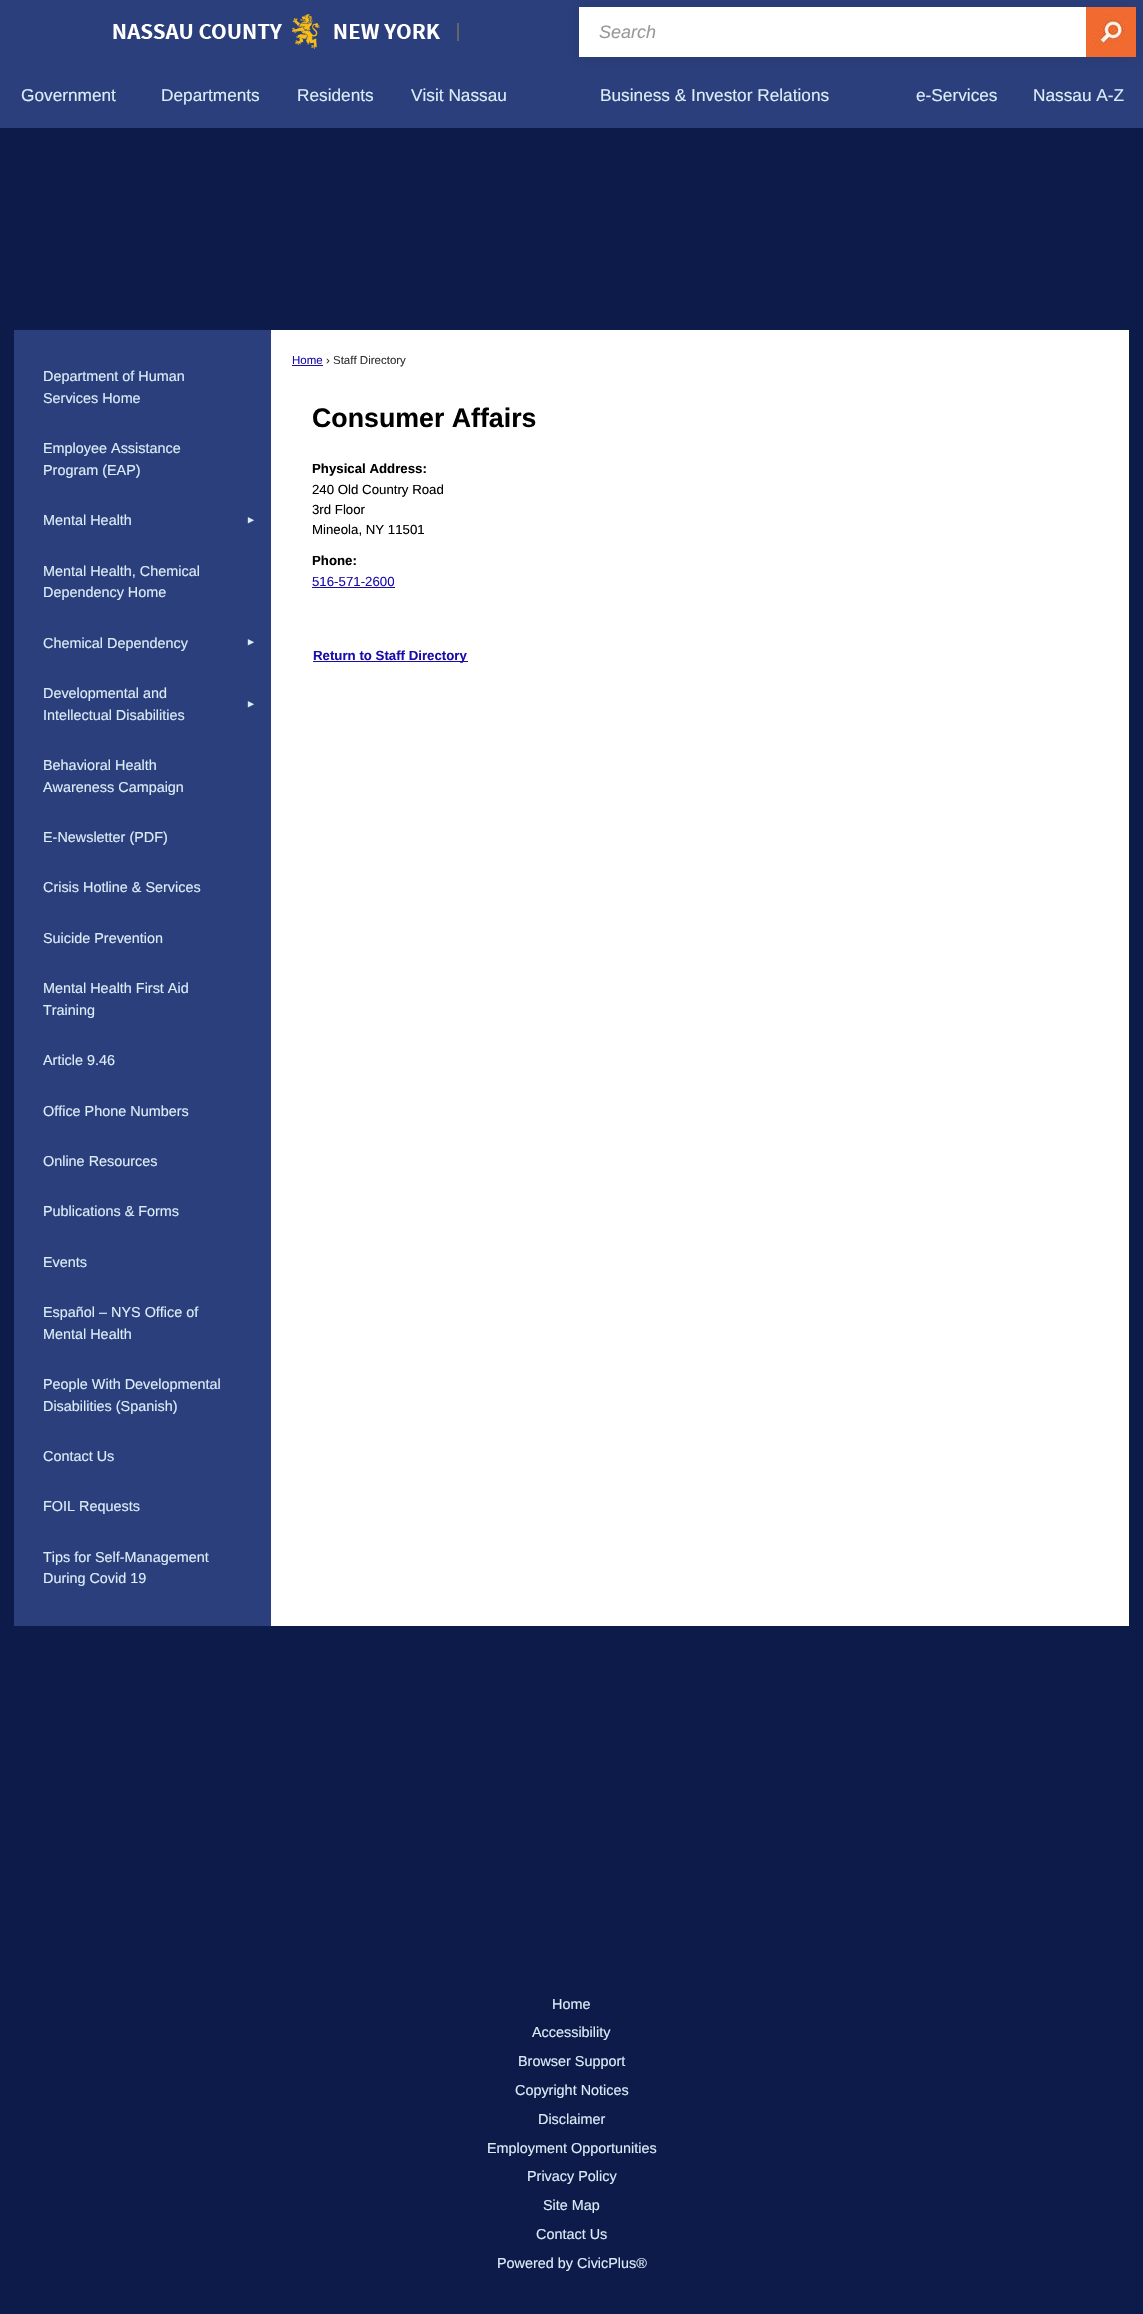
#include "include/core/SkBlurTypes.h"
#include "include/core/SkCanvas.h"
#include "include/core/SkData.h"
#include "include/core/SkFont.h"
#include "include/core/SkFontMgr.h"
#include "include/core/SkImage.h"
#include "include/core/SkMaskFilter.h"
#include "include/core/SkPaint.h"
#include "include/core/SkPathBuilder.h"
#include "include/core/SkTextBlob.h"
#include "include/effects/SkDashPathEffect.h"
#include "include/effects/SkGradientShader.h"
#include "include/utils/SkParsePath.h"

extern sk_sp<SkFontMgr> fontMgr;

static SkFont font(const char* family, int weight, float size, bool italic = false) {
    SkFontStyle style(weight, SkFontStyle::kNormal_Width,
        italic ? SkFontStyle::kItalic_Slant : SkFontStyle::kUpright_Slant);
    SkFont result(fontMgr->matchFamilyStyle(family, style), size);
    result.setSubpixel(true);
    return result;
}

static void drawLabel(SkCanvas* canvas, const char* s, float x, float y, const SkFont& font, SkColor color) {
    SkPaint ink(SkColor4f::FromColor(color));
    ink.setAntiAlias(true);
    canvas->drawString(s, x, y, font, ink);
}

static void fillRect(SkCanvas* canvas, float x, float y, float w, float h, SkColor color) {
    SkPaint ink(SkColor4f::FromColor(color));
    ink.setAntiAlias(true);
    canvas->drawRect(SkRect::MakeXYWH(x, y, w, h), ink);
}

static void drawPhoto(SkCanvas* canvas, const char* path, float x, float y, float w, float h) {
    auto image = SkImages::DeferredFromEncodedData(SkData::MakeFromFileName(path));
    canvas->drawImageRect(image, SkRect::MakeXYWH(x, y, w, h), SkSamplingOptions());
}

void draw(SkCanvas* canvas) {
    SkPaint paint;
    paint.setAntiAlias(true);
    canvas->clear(0xFF0C1B4A);
    fillRect(canvas, 0, 0, 1143, 128, 0xFF2B3F7C);
    drawPhoto(canvas, "assets/img1.png", 113, 14, 346, 35);
    paint.setColor(0x1A000000);
    paint.setMaskFilter(SkMaskFilter::MakeBlur(kNormal_SkBlurStyle, 7.5f));
    canvas->drawRect(SkRect::MakeXYWH(579, 7, 557, 50), paint);
    paint.setMaskFilter(nullptr);
    fillRect(canvas, 579, 7, 507, 50, 0xFFFFFFFF);
    SkFont font1 = font("Liberation Sans", 400, 18, true);
    drawLabel(canvas, "Search", 599, 38, font1, 0xFF999999);
    drawPhoto(canvas, "assets/img2.png", 1086, 7, 50, 50);
    SkFont font2 = font("Liberation Sans", 400, 17.25f);
    drawLabel(canvas, "Government", 21, 101, font2, 0xFFDBECF7);
    drawLabel(canvas, "Departments", 161, 101, font2, 0xFFDBECF7);
    drawLabel(canvas, "Residents", 297, 101, font2, 0xFFDBECF7);
    drawLabel(canvas, "Visit Nassau", 411, 101, font2, 0xFFDBECF7);
    drawLabel(canvas, "Business & Investor Relations", 600, 101, font2, 0xFFDBECF7);
    drawLabel(canvas, "e-Services", 916, 101, font2, 0xFFDBECF7);
    drawLabel(canvas, "Nassau A-Z", 1033, 101, font2, 0xFFDBECF7);
    fillRect(canvas, 271, 330, 858, 1296, 0xFFFFFFFF);
    fillRect(canvas, 14, 330, 257, 1296, 0xFF2B3F7C);
    SkFont font3 = font("Liberation Sans", 400, 14.4f);
    drawLabel(canvas, "Department of Human", 43, 381, font3, 0xFFDBECF7);
    drawLabel(canvas, "Services Home", 43, 403, font3, 0xFFDBECF7);
    drawLabel(canvas, "Employee Assistance", 43, 453, font3, 0xFFDBECF7);
    drawLabel(canvas, "Program (EAP)", 43, 475, font3, 0xFFDBECF7);
    drawLabel(canvas, "Mental Health", 43, 525, font3, 0xFFDBECF7);
    SkFont font4 = font("Liberation Sans", 700, 10);
    drawLabel(canvas, "►", 246, 523, font4, 0xFFDBECF7);
    drawLabel(canvas, "Mental Health, Chemical", 43, 576, font3, 0xFFDBECF7);
    drawLabel(canvas, "Dependency Home", 43, 597, font3, 0xFFDBECF7);
    drawLabel(canvas, "Chemical Dependency", 43, 648, font3, 0xFFDBECF7);
    drawLabel(canvas, "►", 246, 645, font4, 0xFFDBECF7);
    drawLabel(canvas, "Developmental and", 43, 698, font3, 0xFFDBECF7);
    drawLabel(canvas, "Intellectual Disabilities", 43, 720, font3, 0xFFDBECF7);
    drawLabel(canvas, "►", 246, 707, font4, 0xFFDBECF7);
    drawLabel(canvas, "Behavioral Health", 43, 770, font3, 0xFFDBECF7);
    drawLabel(canvas, "Awareness Campaign", 43, 792, font3, 0xFFDBECF7);
    drawLabel(canvas, "E-Newsletter (PDF)", 43, 842, font3, 0xFFDBECF7);
    drawLabel(canvas, "Crisis Hotline & Services", 43, 892, font3, 0xFFDBECF7);
    drawLabel(canvas, "Suicide Prevention", 43, 943, font3, 0xFFDBECF7);
    drawLabel(canvas, "Mental Health First Aid", 43, 993, font3, 0xFFDBECF7);
    drawLabel(canvas, "Training", 43, 1015, font3, 0xFFDBECF7);
    drawLabel(canvas, "Article 9.46", 43, 1065, font3, 0xFFDBECF7);
    drawLabel(canvas, "Office Phone Numbers", 43, 1116, font3, 0xFFDBECF7);
    drawLabel(canvas, "Online Resources", 43, 1166, font3, 0xFFDBECF7);
    drawLabel(canvas, "Publications & Forms", 43, 1216, font3, 0xFFDBECF7);
    drawLabel(canvas, "Events", 43, 1267, font3, 0xFFDBECF7);
    drawLabel(canvas, "Español – NYS Office of", 43, 1317, font3, 0xFFDBECF7);
    drawLabel(canvas, "Mental Health", 43, 1339, font3, 0xFFDBECF7);
    drawLabel(canvas, "People With Developmental", 43, 1389, font3, 0xFFDBECF7);
    drawLabel(canvas, "Disabilities (Spanish)", 43, 1411, font3, 0xFFDBECF7);
    drawLabel(canvas, "Contact Us", 43, 1461, font3, 0xFFDBECF7);
    drawLabel(canvas, "FOIL Requests", 43, 1511, font3, 0xFFDBECF7);
    drawLabel(canvas, "Tips for Self-Management", 43, 1562, font3, 0xFFDBECF7);
    drawLabel(canvas, "During Covid 19", 43, 1583, font3, 0xFFDBECF7);
    SkFont font5 = font("Liberation Sans", 400, 11.5f);
    drawLabel(canvas, "Home", 292, 364, font5, 0xFF1A0DAB);
    fillRect(canvas, 292, 365, 31, 1, 0xFF1A0DAB);
    drawLabel(canvas, "›", 326, 364, font5, 0xFF333333);
    drawLabel(canvas, "Staff Directory", 333, 364, font5, 0xFF333333);
    SkFont font6 = font("Liberation Sans", 700, 26.75f);
    drawLabel(canvas, "Consumer Affairs", 312, 427, font6, 0xFF000000);
    SkFont font7 = font("Liberation Sans", 700, 13.25f);
    drawLabel(canvas, "Physical Address:", 312, 473, font7, 0xFF000000);
    SkFont font8 = font("Liberation Sans", 400, 13.25f);
    drawLabel(canvas, "240 Old Country Road", 312, 494, font8, 0xFF000000);
    drawLabel(canvas, "3rd Floor", 312, 514, font8, 0xFF000000);
    drawLabel(canvas, "Mineola, NY 11501", 312, 534, font8, 0xFF000000);
    drawLabel(canvas, "Phone:", 312, 565, font7, 0xFF000000);
    drawLabel(canvas, "516-571-2600", 312, 586, font8, 0xFF1A0DAB);
    fillRect(canvas, 312, 587, 83, 1, 0xFF1A0DAB);
    fillRect(canvas, 313, 661, 155, 1, 0xFF1A0DAB);
    drawLabel(canvas, "Return to Staff Directory", 313, 660, font7, 0xFF1A0DAB);
    drawLabel(canvas, "Home", 552, 2009, font3, 0xFFDBECF7);
    drawLabel(canvas, "Accessibility", 532, 2037, font3, 0xFFDBECF7);
    drawLabel(canvas, "Browser Support", 518, 2066, font3, 0xFFDBECF7);
    drawLabel(canvas, "Copyright Notices", 515, 2095, font3, 0xFFDBECF7);
    drawLabel(canvas, "Disclaimer", 538, 2124, font3, 0xFFDBECF7);
    drawLabel(canvas, "Employment Opportunities", 487, 2153, font3, 0xFFDBECF7);
    drawLabel(canvas, "Privacy Policy", 527, 2181, font3, 0xFFDBECF7);
    drawLabel(canvas, "Site Map", 543, 2210, font3, 0xFFDBECF7);
    drawLabel(canvas, "Contact Us", 536, 2239, font3, 0xFFDBECF7);
    drawLabel(canvas, "Powered by CivicPlus®", 497, 2268, font3, 0xFFDBECF7);
}
